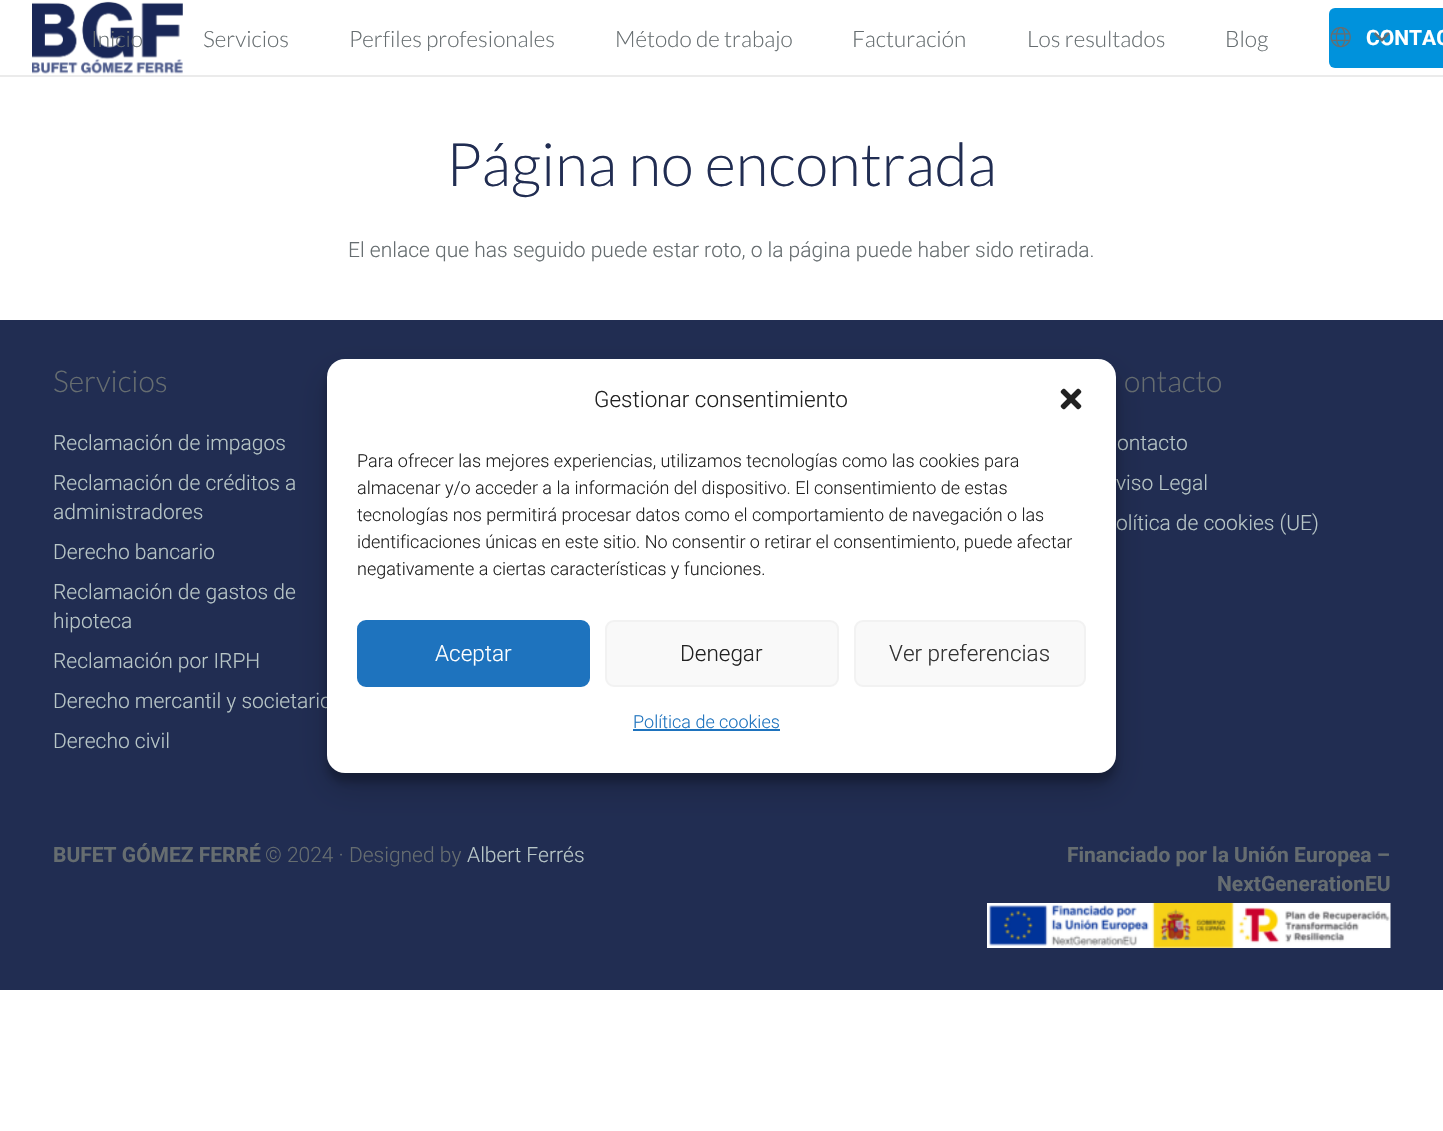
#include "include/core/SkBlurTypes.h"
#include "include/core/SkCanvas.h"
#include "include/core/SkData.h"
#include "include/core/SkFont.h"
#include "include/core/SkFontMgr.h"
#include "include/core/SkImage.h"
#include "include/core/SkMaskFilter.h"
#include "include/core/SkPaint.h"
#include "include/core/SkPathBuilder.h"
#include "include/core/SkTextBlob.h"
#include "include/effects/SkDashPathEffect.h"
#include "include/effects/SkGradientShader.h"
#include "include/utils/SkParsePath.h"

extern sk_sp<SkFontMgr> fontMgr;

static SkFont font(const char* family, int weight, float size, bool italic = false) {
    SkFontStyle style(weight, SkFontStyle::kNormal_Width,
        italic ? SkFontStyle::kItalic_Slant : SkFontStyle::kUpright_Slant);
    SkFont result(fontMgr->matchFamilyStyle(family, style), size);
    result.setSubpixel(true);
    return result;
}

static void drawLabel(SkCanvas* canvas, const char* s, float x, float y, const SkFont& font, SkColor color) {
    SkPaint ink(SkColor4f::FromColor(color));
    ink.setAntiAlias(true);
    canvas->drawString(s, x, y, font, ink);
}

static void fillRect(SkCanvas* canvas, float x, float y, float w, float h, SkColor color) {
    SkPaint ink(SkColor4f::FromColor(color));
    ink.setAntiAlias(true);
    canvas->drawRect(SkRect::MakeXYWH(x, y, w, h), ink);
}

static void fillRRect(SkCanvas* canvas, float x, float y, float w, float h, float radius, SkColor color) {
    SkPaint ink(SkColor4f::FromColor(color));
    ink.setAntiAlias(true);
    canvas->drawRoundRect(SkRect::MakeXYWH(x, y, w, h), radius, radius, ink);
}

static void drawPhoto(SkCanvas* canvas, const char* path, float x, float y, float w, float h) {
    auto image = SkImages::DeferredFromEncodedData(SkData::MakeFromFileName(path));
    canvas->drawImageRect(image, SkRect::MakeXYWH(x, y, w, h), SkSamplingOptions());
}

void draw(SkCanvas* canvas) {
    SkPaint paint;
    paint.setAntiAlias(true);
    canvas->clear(0xFFFFFFFF);
    fillRect(canvas, 0, 75, 1443, 2, 0xFFEBEBEB);
    drawPhoto(canvas, "assets/img1.png", 32, 1, 151, 73);
    fillRRect(canvas, 1329, 8, 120, 60, 6, 0xFF0092DC);
    drawPhoto(canvas, "assets/img2.png", 1330, 27, 21, 21);
    SkFont font1 = font("Roboto", 700, 21);
    drawLabel(canvas, "CONTAC", 1366, 45, font1, 0xFFFFFFFF);
    drawPhoto(canvas, "assets/img3.png", 1374, 32, 16, 10);
    SkFont font2 = font("Lato", 300, 22.5f);
    drawLabel(canvas, "Inicio", 91, 47, font2, 0xFF666D70);
    drawLabel(canvas, "Servicios", 203, 47, font2, 0xFF666D70);
    drawLabel(canvas, "Perfiles profesionales", 349, 47, font2, 0xFF666D70);
    drawLabel(canvas, "Método de trabajo", 615, 47, font2, 0xFF666D70);
    drawLabel(canvas, "Facturación", 852, 47, font2, 0xFF666D70);
    drawLabel(canvas, "Los resultados", 1027, 47, font2, 0xFF666D70);
    drawLabel(canvas, "Blog", 1225, 47, font2, 0xFF666D70);
    SkFont font3 = font("Lato", 300, 60);
    drawLabel(canvas, "Página no encontrada", 446, 186, font3, 0xFF212D52);
    SkFont font4 = font("Roboto", 300, 21);
    drawLabel(canvas, "El enlace que has seguido puede estar roto, o la página puede haber sido retirada.", 348, 257, font4, 0xFF666D70);
    fillRect(canvas, 0, 320, 1443, 670, 0xFF212D52);
    SkFont font5 = font("Lato", 300, 30);
    drawLabel(canvas, "Servicios", 53, 392, font5, 0xFF666D70);
    drawLabel(canvas, "Reclamación de impagos", 53, 450, font4, 0xFFB8C6C7);
    drawLabel(canvas, "Reclamación de créditos a", 53, 490, font4, 0xFFB8C6C7);
    drawLabel(canvas, "administradores", 53, 519, font4, 0xFFB8C6C7);
    drawLabel(canvas, "Derecho bancario", 53, 559, font4, 0xFFB8C6C7);
    drawLabel(canvas, "Reclamación de gastos de", 53, 599, font4, 0xFFB8C6C7);
    drawLabel(canvas, "hipoteca", 53, 628, font4, 0xFFB8C6C7);
    drawLabel(canvas, "Reclamación por IRPH", 53, 668, font4, 0xFFB8C6C7);
    drawLabel(canvas, "Derecho mercantil y societario", 53, 708, font4, 0xFFB8C6C7);
    drawLabel(canvas, "Derecho civil", 53, 748, font4, 0xFFB8C6C7);
    drawLabel(canvas, "ontacto", 1124, 392, font5, 0xFF666D70);
    drawLabel(canvas, "ontacto", 1117, 450, font4, 0xFFB8C6C7);
    drawLabel(canvas, "viso Legal", 1116, 490, font4, 0xFFB8C6C7);
    drawLabel(canvas, "olítica de cookies (UE)", 1116, 530, font4, 0xFFB8C6C7);
    drawLabel(canvas, "BUFET GÓMEZ FERRÉ", 53, 862, font1, 0xFF666D70);
    drawLabel(canvas, "© 2024 · Designed by", 265, 862, font4, 0xFF666D70);
    drawLabel(canvas, "Albert Ferrés", 467, 862, font4, 0xFFB8C6C7);
    drawLabel(canvas, "Financiado por la Unión Europea –", 1067, 862, font1, 0xFF666D70);
    drawLabel(canvas, "NextGenerationEU", 1217, 891, font1, 0xFF666D70);
    drawPhoto(canvas, "assets/img4.png", 987, 903, 404, 45);
    paint.setColor(0x3B000000);
    paint.setMaskFilter(SkMaskFilter::MakeBlur(kNormal_SkBlurStyle, 4.5f));
    canvas->drawRoundRect(SkRect::MakeXYWH(327, 368, 789, 414), 18, 18, paint);
    paint.setMaskFilter(nullptr);
    paint.setColor(0x30000000);
    paint.setMaskFilter(SkMaskFilter::MakeBlur(kNormal_SkBlurStyle, 15));
    canvas->drawRoundRect(SkRect::MakeXYWH(327, 374, 789, 414), 18, 18, paint);
    paint.setMaskFilter(nullptr);
    fillRRect(canvas, 327, 359, 789, 414, 18, 0xFFFFFFFF);
    SkFont font6 = font("Roboto", 300, 22.5f);
    drawLabel(canvas, "Gestionar consentimiento", 594, 407, font6, 0xFF222222);
    drawPhoto(canvas, "assets/img5.png", 1060, 388, 22, 22);
    SkFont font7 = font("Roboto", 300, 18);
    drawLabel(canvas, "Para ofrecer las mejores experiencias, utilizamos tecnologías como las cookies para", 357, 467, font7, 0xFF222222);
    drawLabel(canvas, "almacenar y/o acceder a la información del dispositivo. El consentimiento de estas", 357, 494, font7, 0xFF222222);
    drawLabel(canvas, "tecnologías nos permitirá procesar datos como el comportamiento de navegación o las", 357, 521, font7, 0xFF222222);
    drawLabel(canvas, "identificaciones únicas en este sitio. No consentir o retirar el consentimiento, puede afectar", 357, 548, font7, 0xFF222222);
    drawLabel(canvas, "negativamente a ciertas características y funciones.", 357, 575, font7, 0xFF222222);
    paint.setColor(0xFF1E73BE);
    canvas->drawRoundRect(SkRect::MakeXYWH(358, 621, 231, 65), 8, 8, paint);
    paint.setStroke(true);
    paint.setStrokeWidth(2);
    canvas->drawRoundRect(SkRect::MakeXYWH(358, 621, 231, 65), 8, 8, paint);
    drawLabel(canvas, "Aceptar", 435, 661, font6, 0xFFFFFFFF);
    paint.setStroke(false);
    paint.setColor(0xFFF9F9F9);
    canvas->drawRoundRect(SkRect::MakeXYWH(606, 621, 232, 65), 8, 8, paint);
    paint.setStroke(true);
    paint.setColor(0xFFF2F2F2);
    canvas->drawRoundRect(SkRect::MakeXYWH(606, 621, 232, 65), 8, 8, paint);
    drawLabel(canvas, "Denegar", 680, 661, font6, 0xFF222222);
    paint.setStroke(false);
    paint.setColor(0xFFF9F9F9);
    canvas->drawRoundRect(SkRect::MakeXYWH(855, 621, 230, 65), 8, 8, paint);
    paint.setStroke(true);
    paint.setColor(0xFFF2F2F2);
    canvas->drawRoundRect(SkRect::MakeXYWH(855, 621, 230, 65), 8, 8, paint);
    drawLabel(canvas, "Ver preferencias", 889, 661, font6, 0xFF333333);
    drawLabel(canvas, "Política de cookies", 633, 728, font7, 0xFF1E73BE);
    fillRect(canvas, 633, 729, 147, 2, 0xFF1E73BE);
}
